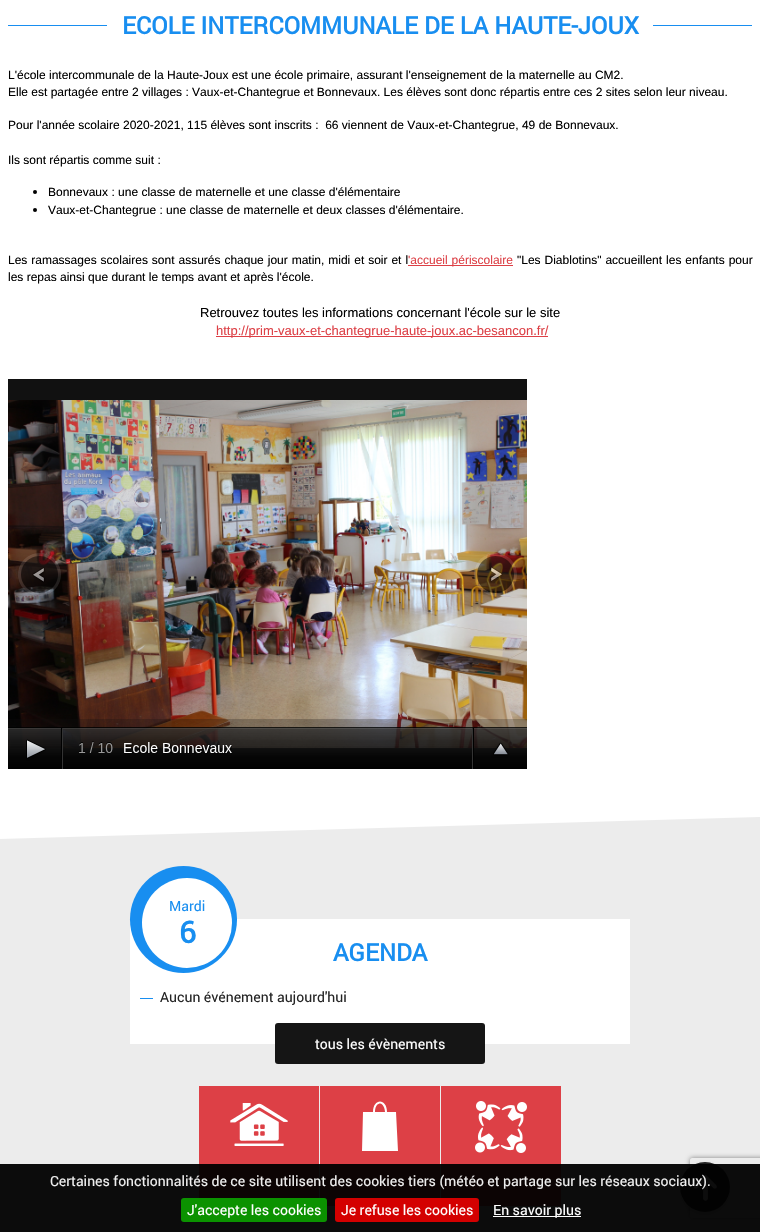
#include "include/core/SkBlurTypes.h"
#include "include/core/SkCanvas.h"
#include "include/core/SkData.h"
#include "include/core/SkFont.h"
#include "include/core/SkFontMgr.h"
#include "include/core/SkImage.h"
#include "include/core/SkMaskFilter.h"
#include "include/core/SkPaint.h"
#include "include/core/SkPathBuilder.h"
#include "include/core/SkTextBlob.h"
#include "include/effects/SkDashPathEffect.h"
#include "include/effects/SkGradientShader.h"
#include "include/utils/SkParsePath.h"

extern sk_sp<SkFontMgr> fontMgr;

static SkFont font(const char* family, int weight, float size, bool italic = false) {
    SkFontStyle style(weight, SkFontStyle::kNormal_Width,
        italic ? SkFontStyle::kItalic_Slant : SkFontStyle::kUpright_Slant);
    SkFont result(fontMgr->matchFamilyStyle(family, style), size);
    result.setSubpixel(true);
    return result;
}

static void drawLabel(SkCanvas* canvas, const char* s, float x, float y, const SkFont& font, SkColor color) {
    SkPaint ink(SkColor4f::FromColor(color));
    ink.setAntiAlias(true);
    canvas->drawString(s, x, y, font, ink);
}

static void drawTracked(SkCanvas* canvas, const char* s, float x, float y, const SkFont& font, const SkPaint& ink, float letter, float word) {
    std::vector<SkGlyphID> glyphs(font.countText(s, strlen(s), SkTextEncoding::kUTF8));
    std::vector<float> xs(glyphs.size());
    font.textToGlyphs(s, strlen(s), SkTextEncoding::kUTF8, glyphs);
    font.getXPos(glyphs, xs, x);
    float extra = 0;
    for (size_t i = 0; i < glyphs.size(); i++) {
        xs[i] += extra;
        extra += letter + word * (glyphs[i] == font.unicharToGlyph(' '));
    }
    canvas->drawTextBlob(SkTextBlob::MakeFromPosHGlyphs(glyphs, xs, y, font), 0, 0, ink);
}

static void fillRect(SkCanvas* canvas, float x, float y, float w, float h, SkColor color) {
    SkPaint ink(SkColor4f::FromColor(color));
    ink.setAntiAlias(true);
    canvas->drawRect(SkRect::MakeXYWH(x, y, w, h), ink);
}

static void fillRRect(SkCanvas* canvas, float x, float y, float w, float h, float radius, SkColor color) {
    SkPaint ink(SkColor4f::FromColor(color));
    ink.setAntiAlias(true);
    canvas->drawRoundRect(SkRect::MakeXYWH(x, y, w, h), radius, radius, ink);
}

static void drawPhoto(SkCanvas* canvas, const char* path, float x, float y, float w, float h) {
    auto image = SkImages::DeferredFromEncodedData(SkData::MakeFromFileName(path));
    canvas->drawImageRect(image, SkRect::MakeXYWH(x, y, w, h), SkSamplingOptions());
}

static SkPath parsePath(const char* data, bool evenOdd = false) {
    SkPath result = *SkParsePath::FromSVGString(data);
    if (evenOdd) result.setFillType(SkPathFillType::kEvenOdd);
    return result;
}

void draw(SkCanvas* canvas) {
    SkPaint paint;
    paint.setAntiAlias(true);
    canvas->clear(0xFFECECEC);
    fillRect(canvas, 0, 0, 760, 734, 0xFFFFFFFF);
    fillRect(canvas, 8, 25, 744, 1, 0xFF188EF0);
    fillRect(canvas, 107, 25, 546, 1, 0xFFFFFFFF);
    SkFont font1 = font("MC", 700, 24);
    drawLabel(canvas, "ECOLE INTERCOMMUNALE DE LA HAUTE-JOUX", 122, 34, font1, 0xFF188EF0);
    SkFont font2 = font("Liberation Sans", 400, 12);
    drawLabel(canvas, "L'école intercommunale de la Haute-Joux est une école primaire, assurant l'enseignement de la maternelle au CM2.", 8, 79, font2, 0xFF000000);
    drawLabel(canvas, "Elle est partagée entre 2 villages : Vaux-et-Chantegrue et Bonnevaux. Les élèves sont donc répartis entre ces 2 sites selon leur niveau.", 8, 96, font2, 0xFF000000);
    drawLabel(canvas, "Pour l'année scolaire 2020-2021, 115 élèves sont inscrits :  66 viennent de Vaux-et-Chantegrue, 49 de Bonnevaux.", 8, 129, font2, 0xFF000000);
    drawLabel(canvas, "Ils sont répartis comme suit :", 8, 164, font2, 0xFF000000);
    paint.setColor(0xFF000000);
    canvas->drawCircle(35, 192, 2, paint);
    drawLabel(canvas, "Bonnevaux : une classe de maternelle et une classe d'élémentaire", 48, 196, font2, 0xFF000000);
    canvas->drawCircle(35, 210, 2, paint);
    drawLabel(canvas, "Vaux-et-Chantegrue : une classe de maternelle et deux classes d'élémentaire.", 48, 214, font2, 0xFF000000);
    drawTracked(canvas, "Les ramassages scolaires sont assurés chaque jour matin, midi et soir et l", 8, 264, font2, paint, 0, 0.6f);
    fillRect(canvas, 408, 265, 105, 1, 0xFFDD4046);
    paint.setColor(0xFFDD4046);
    drawTracked(canvas, "'accueil périscolaire", 408, 264, font2, paint, 0, 0.6f);
    paint.setColor(0xFF000000);
    drawTracked(canvas, "\"Les Diablotins\" accueillent les enfants pour", 517, 264, font2, paint, 0, 0.6f);
    drawLabel(canvas, "les repas ainsi que durant le temps avant et après l'école.", 8, 281, font2, 0xFF000000);
    SkFont font3 = font("Liberation Sans", 400, 13);
    drawLabel(canvas, "Retrouvez toutes les informations concernant l'école sur le site", 200, 317, font3, 0xFF000000);
    fillRect(canvas, 216, 336, 332, 1, 0xFFDD4046);
    drawLabel(canvas, "http://prim-vaux-et-chantegrue-haute-joux.ac-besancon.fr/", 216, 335, font3, 0xFFDD4046);
    paint.setColor(0xFFFFFFFF);
    canvas->drawPath(parsePath("M0 734L760 712V817L0 839Z"), paint);
    drawPhoto(canvas, "assets/img1.png", 8, 379, 519, 390);
    fillRect(canvas, 130, 919, 500, 125, 0xFFFFFFFF);
    paint.setColor(0xFF188EF0);
    canvas->drawCircle(183.5f, 919.5f, 53.5f, paint);
    paint.setColor(0xFFFFFFFF);
    canvas->drawCircle(187, 923, 45, paint);
    SkFont font4 = font("MC", 400, 14);
    drawLabel(canvas, "Mardi", 169, 911, font4, 0xFF188EF0);
    SkFont font5 = font("MC", 700, 30);
    drawLabel(canvas, "6", 179, 943, font5, 0xFF188EF0);
    drawLabel(canvas, "AGENDA", 333, 961, font1, 0xFF188EF0);
    fillRect(canvas, 140, 998, 13, 1, 0xFF188EF0);
    drawLabel(canvas, "Aucun événement aujourd'hui", 160, 1002, font4, 0xFF252525);
    fillRRect(canvas, 275, 1023, 210, 41, 3, 0xFF151515);
    drawLabel(canvas, "tous les évènements", 315, 1049, font4, 0xFFFFFFFF);
    fillRect(canvas, 199, 1086, 120, 112, 0xFFDD4046);
    drawPhoto(canvas, "assets/img2.png", 230, 1103, 58, 43);
    fillRect(canvas, 320, 1086, 120, 120, 0xFFDD4046);
    canvas->drawPath(parsePath("M396 1112H387C387 1098 373 1098 373 1112H363L362 1151H398ZM377 1105C382 1100 385 1108 385 1112H375C375 1112 375 1107 377 1105Z"), paint);
    fillRect(canvas, 441, 1086, 120, 120, 0xFFDD4046);
    drawPhoto(canvas, "assets/img3.png", 475, 1101, 52, 52);
    canvas->save();
    canvas->clipPath(parsePath("M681 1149H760V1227H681ZM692 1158H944C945 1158 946 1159 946 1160V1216C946 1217 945 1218 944 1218H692C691 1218 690 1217 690 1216V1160C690 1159 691 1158 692 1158Z", true), true);
    paint.setColor(0xFF808080);
    paint.setMaskFilter(SkMaskFilter::MakeBlur(kNormal_SkBlurStyle, 2.5f));
    canvas->drawRoundRect(SkRect::MakeXYWH(690, 1158, 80, 60), 2, 2, paint);
    paint.setMaskFilter(nullptr);
    canvas->restore();
    canvas->save();
    canvas->clipPath(parsePath("M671 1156H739V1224H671ZM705 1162C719 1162 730 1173 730 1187C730 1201 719 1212 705 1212C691 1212 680 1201 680 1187C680 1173 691 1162 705 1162Z", true), true);
    paint.setColor(0x30000000);
    paint.setMaskFilter(SkMaskFilter::MakeBlur(kNormal_SkBlurStyle, 2.5f));
    canvas->drawRoundRect(SkRect::MakeXYWH(680, 1165, 50, 50), 25, 25, paint);
    paint.setMaskFilter(nullptr);
    canvas->restore();
    paint.setColor(0xF0151515);
    canvas->drawCircle(705, 1187, 25, paint);
    drawPhoto(canvas, "assets/img4.png", 693, 1174, 24, 27);
    fillRect(canvas, 0, 1164, 760, 68, 0xF2000000);
    drawLabel(canvas, "Certaines fonctionnalités de ce site utilisent des cookies tiers (météo et partage sur les réseaux sociaux).", 50, 1186, font4, 0xFFEEEEEE);
    fillRRect(canvas, 181, 1198, 146, 24, 3, 0xFF0B9200);
    drawLabel(canvas, "J'accepte les cookies", 187, 1215, font4, 0xFFFFFFFF);
    fillRRect(canvas, 335, 1198, 144, 24, 3, 0xFFD40000);
    drawLabel(canvas, "Je refuse les cookies", 341, 1215, font4, 0xFFFFFFFF);
    fillRect(canvas, 493, 1216, 88, 1, 0xFFFFFFFF);
    drawLabel(canvas, "En savoir plus", 493, 1215, font4, 0xFFFFFFFF);
}
